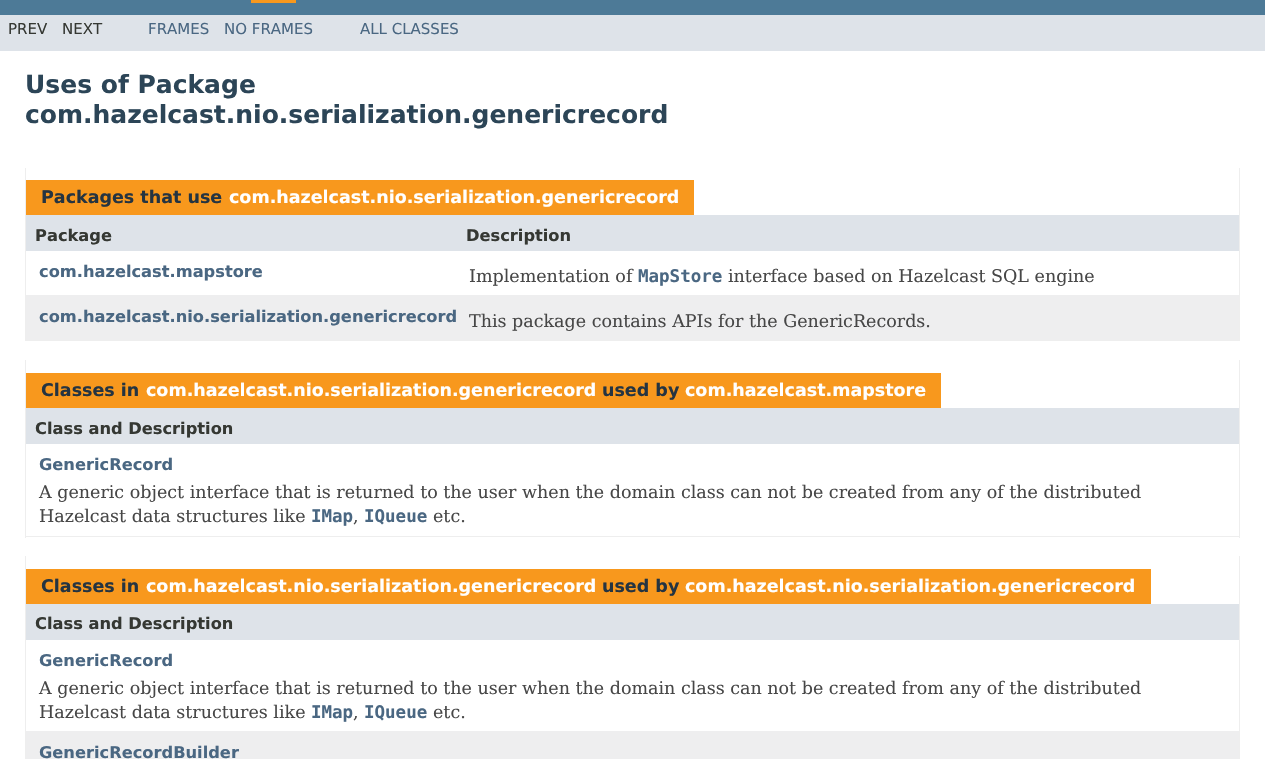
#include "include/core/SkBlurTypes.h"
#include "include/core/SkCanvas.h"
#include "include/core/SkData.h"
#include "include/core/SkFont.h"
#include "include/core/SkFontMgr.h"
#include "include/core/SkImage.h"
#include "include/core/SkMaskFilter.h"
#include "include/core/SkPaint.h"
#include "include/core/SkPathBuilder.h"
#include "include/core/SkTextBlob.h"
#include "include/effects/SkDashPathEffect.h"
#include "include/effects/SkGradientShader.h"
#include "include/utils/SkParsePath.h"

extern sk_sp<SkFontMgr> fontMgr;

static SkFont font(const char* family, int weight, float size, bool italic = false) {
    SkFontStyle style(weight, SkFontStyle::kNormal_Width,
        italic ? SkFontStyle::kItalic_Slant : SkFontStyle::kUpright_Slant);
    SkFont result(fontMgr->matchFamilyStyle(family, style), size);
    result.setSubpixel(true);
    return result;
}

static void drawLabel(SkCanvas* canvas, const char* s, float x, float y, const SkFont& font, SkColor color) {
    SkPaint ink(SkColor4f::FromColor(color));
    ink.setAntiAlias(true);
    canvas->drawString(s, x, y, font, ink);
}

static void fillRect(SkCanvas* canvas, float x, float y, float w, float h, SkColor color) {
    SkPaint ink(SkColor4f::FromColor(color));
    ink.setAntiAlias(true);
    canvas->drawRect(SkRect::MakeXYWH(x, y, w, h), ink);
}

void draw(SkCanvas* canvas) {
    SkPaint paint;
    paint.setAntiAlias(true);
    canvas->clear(0xFFFFFFFF);
    fillRect(canvas, 0, 0, 1265, 15, 0xFF4D7A97);
    fillRect(canvas, 251, 0, 45, 3, 0xFFF8981D);
    fillRect(canvas, 0, 15, 1265, 36, 0xFFDEE3E9);
    SkFont font1 = font("DejaVu Sans", 400, 15);
    drawLabel(canvas, "PREV", 8, 34, font1, 0xFF353833);
    drawLabel(canvas, "NEXT", 62, 34, font1, 0xFF353833);
    drawLabel(canvas, "FRAMES", 148, 34, font1, 0xFF4A6782);
    drawLabel(canvas, "NO FRAMES", 224, 34, font1, 0xFF4A6782);
    drawLabel(canvas, "ALL CLASSES", 360, 34, font1, 0xFF4A6782);
    SkFont font2 = font("DejaVu Sans", 700, 25);
    drawLabel(canvas, "Uses of Package", 25, 93, font2, 0xFF2C4557);
    drawLabel(canvas, "com.hazelcast.nio.serialization.genericrecord", 25, 123, font2, 0xFF2C4557);
    fillRect(canvas, 1239, 168, 1, 173, 0xFFEEEEEE);
    fillRect(canvas, 25, 340, 1215, 1, 0xFFEEEEEE);
    fillRect(canvas, 25, 168, 1, 173, 0xFFEEEEEE);
    fillRect(canvas, 26, 180, 668, 35, 0xFFF8981D);
    SkFont font3 = font("DejaVu Sans", 700, 17.5f);
    drawLabel(canvas, "Packages that use", 41, 203, font3, 0xFF253441);
    drawLabel(canvas, "com.hazelcast.nio.serialization.genericrecord", 229, 203, font3, 0xFFFFFFFF);
    fillRect(canvas, 26, 215, 1213, 36, 0xFFDEE3E9);
    SkFont font4 = font("DejaVu Sans", 700, 16.25f);
    drawLabel(canvas, "Package", 35, 241, font4, 0xFF353833);
    drawLabel(canvas, "Description", 466, 241, font4, 0xFF353833);
    drawLabel(canvas, "com.hazelcast.mapstore", 39, 277, font4, 0xFF4A6782);
    SkFont font5 = font("DejaVu Serif", 400, 17.5f);
    drawLabel(canvas, "Implementation of", 469, 282, font5, 0xFF474747);
    SkFont font6 = font("DejaVu Sans Mono", 700, 17.5f);
    drawLabel(canvas, "MapStore", 638, 282, font6, 0xFF4A6782);
    drawLabel(canvas, "interface based on Hazelcast SQL engine", 728, 282, font5, 0xFF474747);
    fillRect(canvas, 26, 295, 1213, 45, 0xFFEEEEEF);
    drawLabel(canvas, "com.hazelcast.nio.serialization.genericrecord", 39, 322, font4, 0xFF4A6782);
    drawLabel(canvas, "This package contains APIs for the GenericRecords.", 469, 327, font5, 0xFF474747);
    fillRect(canvas, 1239, 360, 1, 178, 0xFFEEEEEE);
    fillRect(canvas, 25, 536, 1215, 1, 0xFFEEEEEE);
    fillRect(canvas, 25, 360, 1, 178, 0xFFEEEEEE);
    fillRect(canvas, 26, 373, 915, 35, 0xFFF8981D);
    drawLabel(canvas, "Classes in", 41, 396, font3, 0xFF253441);
    drawLabel(canvas, "com.hazelcast.nio.serialization.genericrecord", 146, 396, font3, 0xFFFFFFFF);
    drawLabel(canvas, "used by", 602, 396, font3, 0xFF253441);
    drawLabel(canvas, "com.hazelcast.mapstore", 685, 396, font3, 0xFFFFFFFF);
    fillRect(canvas, 26, 408, 1213, 36, 0xFFDEE3E9);
    drawLabel(canvas, "Class and Description", 35, 434, font4, 0xFF353833);
    drawLabel(canvas, "GenericRecord", 39, 470, font4, 0xFF4A6782);
    drawLabel(canvas, "A generic object interface that is returned to the user when the domain class can not be created from any of the distributed", 39, 498, font5, 0xFF474747);
    drawLabel(canvas, "Hazelcast data structures like", 39, 522, font5, 0xFF474747);
    drawLabel(canvas, "IMap", 311, 522, font6, 0xFF4A6782);
    drawLabel(canvas, ",", 353, 522, font5, 0xFF474747);
    drawLabel(canvas, "IQueue", 364, 522, font6, 0xFF4A6782);
    drawLabel(canvas, "etc.", 433, 522, font5, 0xFF474747);
    fillRect(canvas, 1239, 556, 1, 203, 0xFFEEEEEE);
    fillRect(canvas, 25, 556, 1, 203, 0xFFEEEEEE);
    fillRect(canvas, 26, 569, 1125, 35, 0xFFF8981D);
    drawLabel(canvas, "Classes in", 41, 592, font3, 0xFF253441);
    drawLabel(canvas, "com.hazelcast.nio.serialization.genericrecord", 146, 592, font3, 0xFFFFFFFF);
    drawLabel(canvas, "used by", 602, 592, font3, 0xFF253441);
    drawLabel(canvas, "com.hazelcast.nio.serialization.genericrecord", 685, 592, font3, 0xFFFFFFFF);
    fillRect(canvas, 26, 604, 1213, 36, 0xFFDEE3E9);
    drawLabel(canvas, "Class and Description", 35, 629, font4, 0xFF353833);
    drawLabel(canvas, "GenericRecord", 39, 666, font4, 0xFF4A6782);
    drawLabel(canvas, "A generic object interface that is returned to the user when the domain class can not be created from any of the distributed", 39, 694, font5, 0xFF474747);
    drawLabel(canvas, "Hazelcast data structures like", 39, 718, font5, 0xFF474747);
    drawLabel(canvas, "IMap", 311, 718, font6, 0xFF4A6782);
    drawLabel(canvas, ",", 353, 718, font5, 0xFF474747);
    drawLabel(canvas, "IQueue", 364, 718, font6, 0xFF4A6782);
    drawLabel(canvas, "etc.", 433, 718, font5, 0xFF474747);
    fillRect(canvas, 26, 731, 1213, 28, 0xFFEEEEEF);
    drawLabel(canvas, "GenericRecordBuilder", 39, 758, font4, 0xFF4A6782);
}
